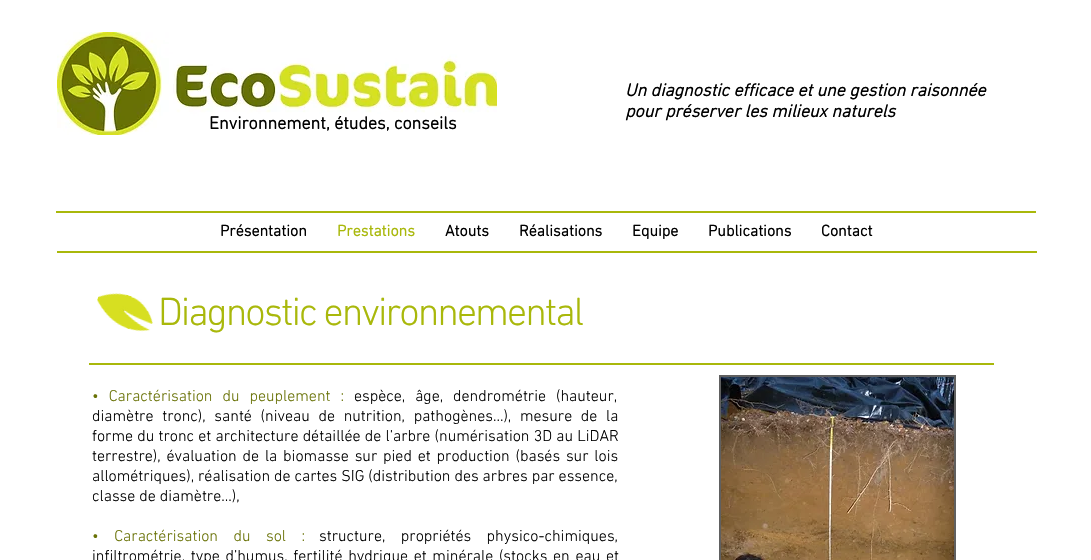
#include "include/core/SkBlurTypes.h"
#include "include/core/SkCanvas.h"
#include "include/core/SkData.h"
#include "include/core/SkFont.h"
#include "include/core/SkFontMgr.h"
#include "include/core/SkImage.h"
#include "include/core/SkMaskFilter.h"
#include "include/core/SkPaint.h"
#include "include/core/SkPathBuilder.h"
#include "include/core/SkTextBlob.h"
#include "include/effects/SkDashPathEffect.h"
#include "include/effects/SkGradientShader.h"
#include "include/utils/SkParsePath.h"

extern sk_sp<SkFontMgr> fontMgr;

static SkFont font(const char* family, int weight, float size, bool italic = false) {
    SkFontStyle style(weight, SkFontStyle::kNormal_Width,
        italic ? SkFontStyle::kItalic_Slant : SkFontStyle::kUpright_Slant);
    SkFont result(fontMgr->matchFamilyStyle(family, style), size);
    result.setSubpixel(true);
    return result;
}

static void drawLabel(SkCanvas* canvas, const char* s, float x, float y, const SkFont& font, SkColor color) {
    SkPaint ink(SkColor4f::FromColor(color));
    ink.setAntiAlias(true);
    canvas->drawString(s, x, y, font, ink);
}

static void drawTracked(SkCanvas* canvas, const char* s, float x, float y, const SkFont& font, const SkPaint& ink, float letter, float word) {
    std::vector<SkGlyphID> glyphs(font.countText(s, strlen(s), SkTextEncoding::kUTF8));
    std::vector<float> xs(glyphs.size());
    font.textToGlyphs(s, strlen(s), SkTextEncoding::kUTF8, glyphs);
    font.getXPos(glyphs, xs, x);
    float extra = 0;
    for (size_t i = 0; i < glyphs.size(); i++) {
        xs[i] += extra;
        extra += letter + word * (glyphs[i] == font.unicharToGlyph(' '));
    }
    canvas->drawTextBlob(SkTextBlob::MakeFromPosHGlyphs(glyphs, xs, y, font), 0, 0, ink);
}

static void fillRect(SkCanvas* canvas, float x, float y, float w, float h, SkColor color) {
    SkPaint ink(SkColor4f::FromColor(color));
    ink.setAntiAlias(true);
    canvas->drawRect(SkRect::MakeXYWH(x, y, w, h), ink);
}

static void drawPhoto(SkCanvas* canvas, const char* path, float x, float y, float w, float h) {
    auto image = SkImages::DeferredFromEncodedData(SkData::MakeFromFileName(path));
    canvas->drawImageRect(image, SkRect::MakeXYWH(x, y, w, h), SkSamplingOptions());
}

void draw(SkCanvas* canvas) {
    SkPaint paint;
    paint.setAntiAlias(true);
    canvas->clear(0xFFFFFFFF);
    drawPhoto(canvas, "assets/img1.png", 57, 32, 440, 103);
    SkFont font1 = font("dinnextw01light", 700, 18, true);
    drawLabel(canvas, "Un diagnostic efficace et une gestion raisonnée", 625, 96, font1, 0xFF000000);
    drawLabel(canvas, "pour préserver les milieux naturels", 625, 117, font1, 0xFF000000);
    SkFont font2 = font("dinnextw01light", 700, 18);
    drawLabel(canvas, "Environnement, études, conseils", 209, 129, font2, 0xFF000000);
    fillRect(canvas, 56, 211, 980, 2, 0xFFA9B80B);
    SkFont font3 = font("dinnextw01light", 700, 16);
    drawLabel(canvas, "Présentation", 220, 236, font3, 0xFF000000);
    drawLabel(canvas, "Prestations", 337, 236, font3, 0xFFA9B80B);
    drawLabel(canvas, "Atouts", 445, 236, font3, 0xFF000000);
    drawLabel(canvas, "Réalisations", 519, 236, font3, 0xFF000000);
    drawLabel(canvas, "Equipe", 632, 236, font3, 0xFF000000);
    drawLabel(canvas, "Publications", 708, 236, font3, 0xFF000000);
    drawLabel(canvas, "Contact", 821, 236, font3, 0xFF000000);
    fillRect(canvas, 57, 251, 980, 2, 0xFFA9B80B);
    drawPhoto(canvas, "assets/img2.png", 97, 293, 56, 39);
    SkFont font4 = font("dinnextw01light", 300, 40);
    paint.setColor(0xFFA9B80B);
    drawTracked(canvas, "Diagnostic environnemental", 158, 325, font4, paint, -2, 0);
    fillRect(canvas, 89, 363, 905, 2, 0xFFA9B80B);
    SkFont font5 = font("dinnextw01light", 300, 16);
    paint.setColor(0xFF697206);
    drawTracked(canvas, "• Caractérisation du peuplement :", 92, 401, font5, paint, 0, 6);
    paint.setColor(0xFF000000);
    drawTracked(canvas, "espèce, âge, dendrométrie (hauteur,", 354, 401, font5, paint, 0, 6);
    drawTracked(canvas, "diamètre tronc), santé (niveau de nutrition, pathogènes…), mesure de la", 92, 421, font5, paint, 0, 4.75f);
    drawTracked(canvas, "forme du tronc et architecture détaillée de l’arbre (numérisation 3D au LiDAR", 92, 441, font5, paint, 0, 0.25f);
    drawTracked(canvas, "terrestre), évaluation de la biomasse sur pied et production (basés sur lois", 92, 461, font5, paint, 0, 1.9f);
    drawLabel(canvas, "allométriques), réalisation de cartes SIG (distribution des arbres par essence,", 92, 481, font5, 0xFF000000);
    drawLabel(canvas, "classe de diamètre…),", 92, 501, font5, 0xFF000000);
    paint.setColor(0xFF697206);
    drawTracked(canvas, "• Caractérisation du sol :", 92, 541, font5, paint, 0, 11.5f);
    paint.setColor(0xFF000000);
    drawTracked(canvas, "structure, propriétés physico-chimiques,", 319, 541, font5, paint, 0, 11.5f);
    drawTracked(canvas, "infiltrométrie, type d’humus, fertilité hydrique et minérale (stocks en eau et", 92, 561, font5, paint, 0, 1.75f);
    fillRect(canvas, 719, 375, 237, 185, 0xFF606060);
    drawPhoto(canvas, "assets/img3.png", 721, 377, 233, 183);
}
